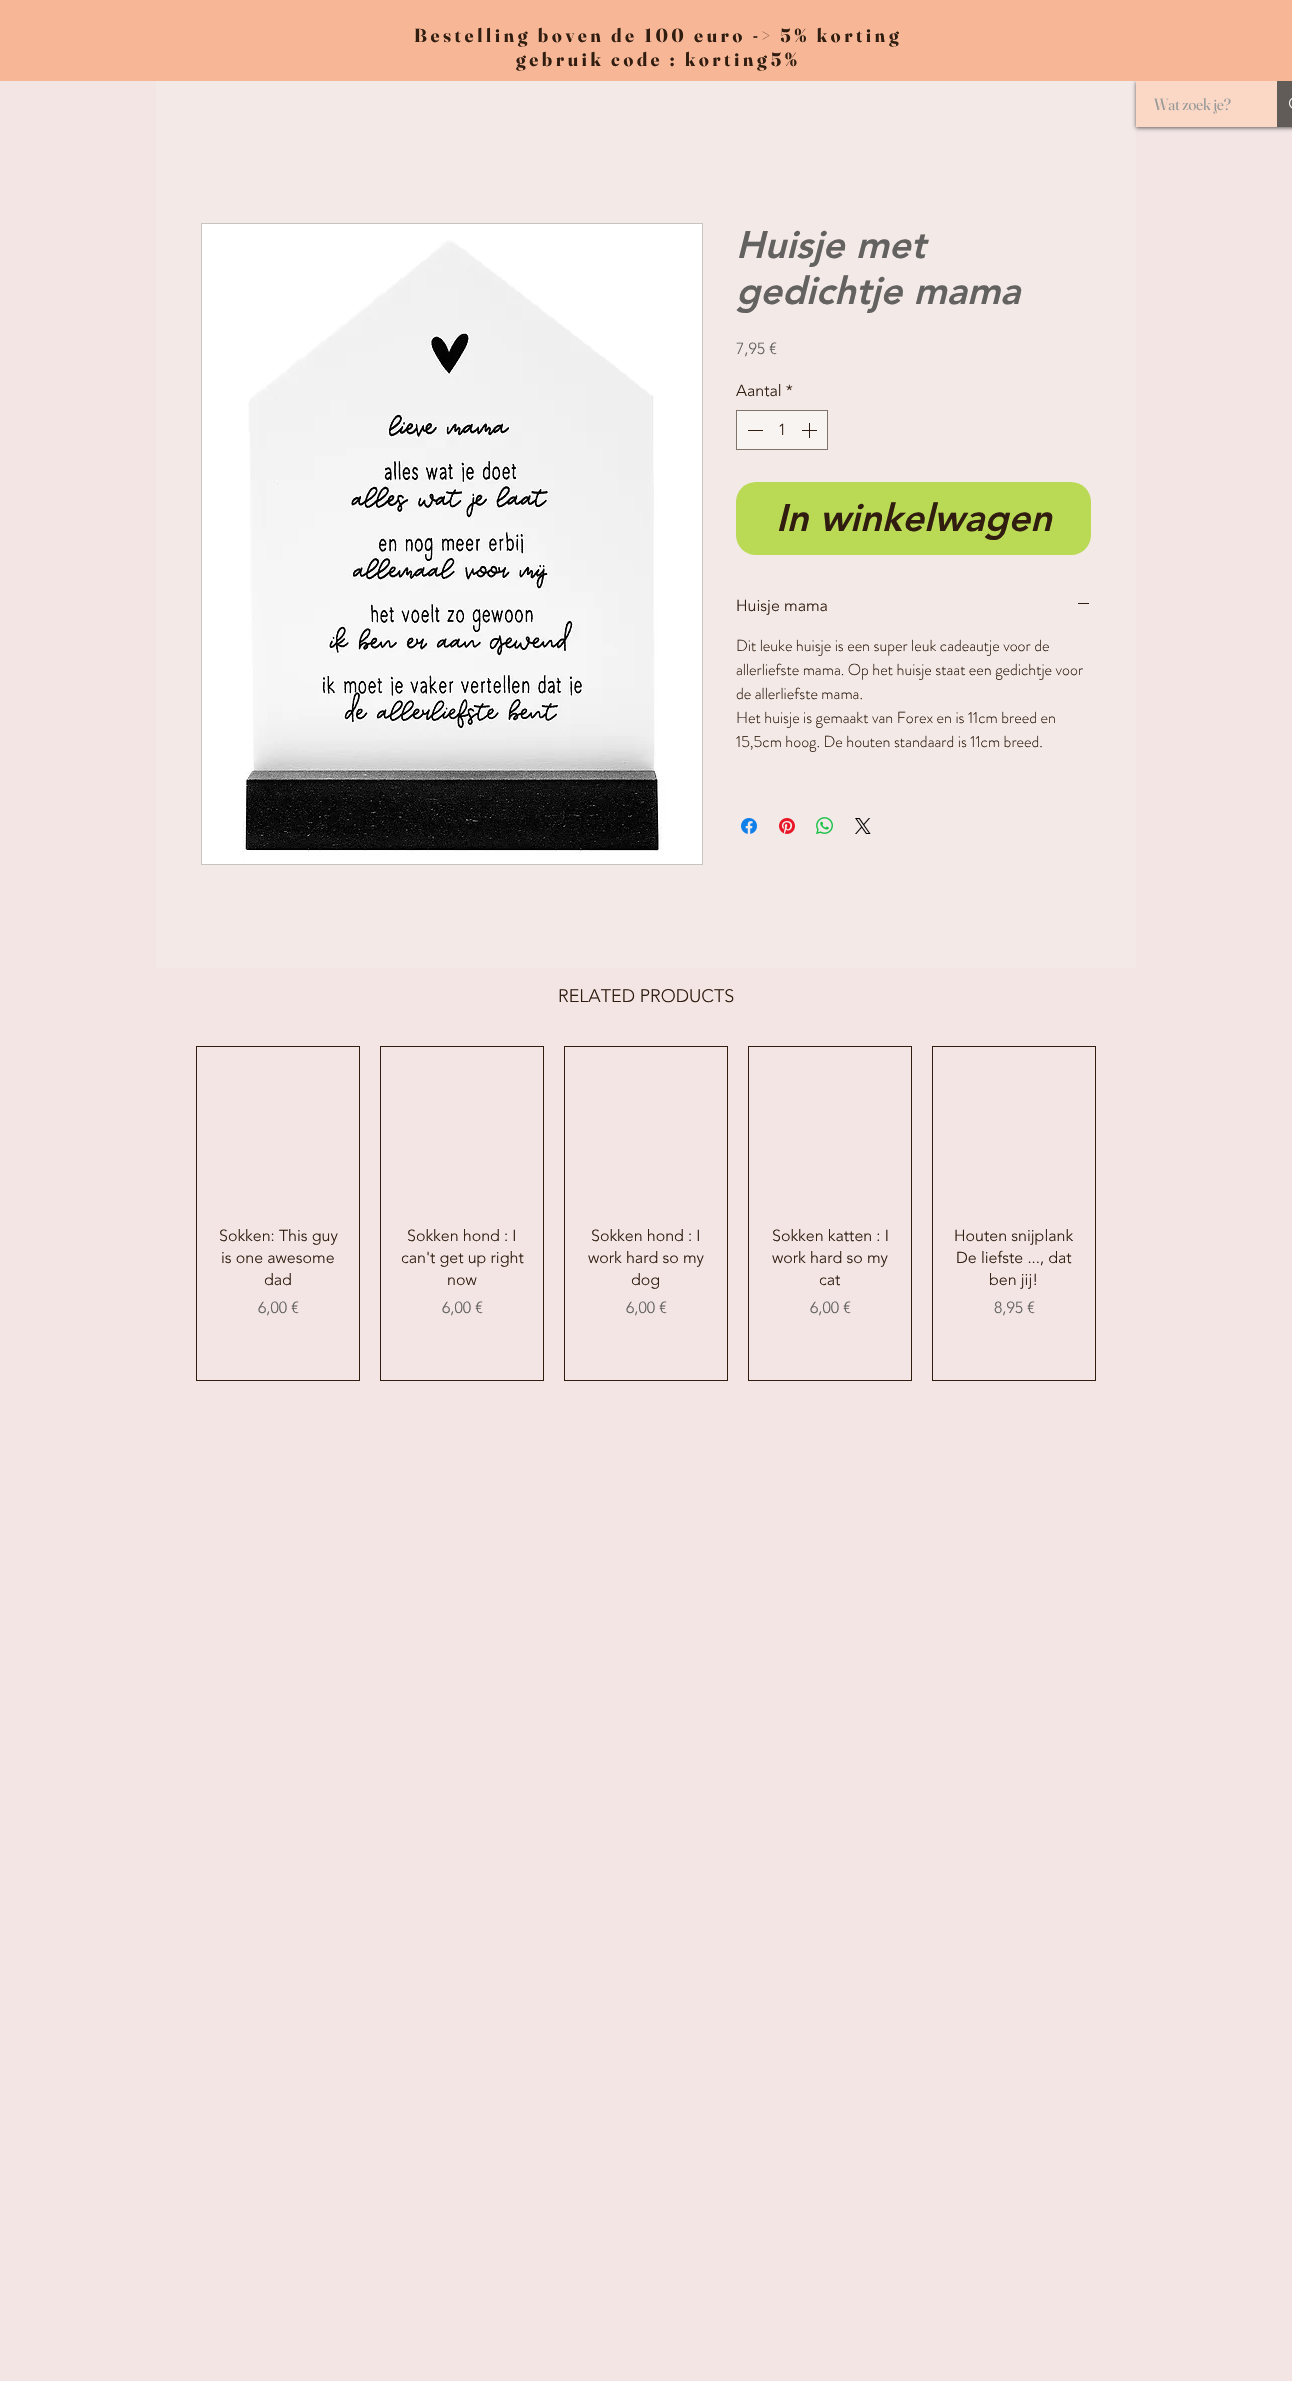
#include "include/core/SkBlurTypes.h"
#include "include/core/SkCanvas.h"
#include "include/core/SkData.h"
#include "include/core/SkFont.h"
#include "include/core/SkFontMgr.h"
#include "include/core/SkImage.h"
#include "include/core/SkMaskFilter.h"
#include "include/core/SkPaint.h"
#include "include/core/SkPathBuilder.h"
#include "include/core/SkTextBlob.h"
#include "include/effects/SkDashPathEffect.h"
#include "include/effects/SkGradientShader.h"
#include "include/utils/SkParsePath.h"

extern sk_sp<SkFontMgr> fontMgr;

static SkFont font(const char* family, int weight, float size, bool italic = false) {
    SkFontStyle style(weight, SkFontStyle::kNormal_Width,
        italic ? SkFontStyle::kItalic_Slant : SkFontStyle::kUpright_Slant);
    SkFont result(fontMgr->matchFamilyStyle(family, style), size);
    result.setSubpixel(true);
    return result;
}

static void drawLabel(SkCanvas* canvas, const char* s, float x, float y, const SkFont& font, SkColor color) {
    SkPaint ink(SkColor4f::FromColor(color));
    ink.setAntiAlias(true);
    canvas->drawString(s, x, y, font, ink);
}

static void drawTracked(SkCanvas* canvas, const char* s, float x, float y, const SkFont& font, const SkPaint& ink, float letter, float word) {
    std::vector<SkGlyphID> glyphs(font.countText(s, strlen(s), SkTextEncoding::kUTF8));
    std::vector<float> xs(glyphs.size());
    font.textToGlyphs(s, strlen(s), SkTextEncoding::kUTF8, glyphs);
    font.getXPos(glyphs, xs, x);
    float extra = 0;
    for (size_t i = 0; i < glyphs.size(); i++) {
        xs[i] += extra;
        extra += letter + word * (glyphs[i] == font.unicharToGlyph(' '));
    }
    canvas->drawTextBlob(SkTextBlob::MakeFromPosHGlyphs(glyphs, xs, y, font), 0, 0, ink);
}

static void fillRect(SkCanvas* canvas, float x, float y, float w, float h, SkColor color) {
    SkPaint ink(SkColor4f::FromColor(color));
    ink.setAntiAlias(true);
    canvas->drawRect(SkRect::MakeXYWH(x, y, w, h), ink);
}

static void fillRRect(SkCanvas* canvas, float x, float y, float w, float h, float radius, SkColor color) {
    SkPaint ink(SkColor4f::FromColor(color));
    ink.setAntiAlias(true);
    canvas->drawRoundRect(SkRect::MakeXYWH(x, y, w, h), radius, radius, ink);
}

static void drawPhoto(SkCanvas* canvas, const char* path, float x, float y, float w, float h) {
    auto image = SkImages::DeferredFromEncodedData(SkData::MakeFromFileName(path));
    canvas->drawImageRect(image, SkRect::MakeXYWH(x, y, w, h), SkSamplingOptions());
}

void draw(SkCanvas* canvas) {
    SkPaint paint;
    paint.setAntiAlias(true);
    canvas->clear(0xFFF2E5E4);
    fillRect(canvas, 156, 81, 980, 887, 0xFFF3E9E7);
    paint.setColor(0x99000000);
    paint.setMaskFilter(SkMaskFilter::MakeBlur(kNormal_SkBlurStyle, 2));
    canvas->drawRect(SkRect::MakeXYWH(1136, 82, 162, 46), paint);
    paint.setMaskFilter(nullptr);
    fillRect(canvas, 0, 0, 1292, 81, 0xFFF7B797);
    SkFont font1 = font("Fraunces", 700, 19);
    paint.setColor(0xFF301D10);
    drawTracked(canvas, "Bestelling boven de 100 euro -> 5% korting", 414, 42, font1, paint, 3.8f, 0);
    drawTracked(canvas, "gebruik code : korting5%", 516, 66, font1, paint, 3.8f, 0);
    fillRect(canvas, 1136, 81, 141, 46, 0xFFFAD8C5);
    SkFont font2 = font("Fraunces", 400, 16);
    drawLabel(canvas, "Wat zoek je?", 1154, 110, font2, 0xFF999999);
    fillRect(canvas, 1277, 81, 15, 46, 0xFF625C59);
    drawPhoto(canvas, "assets/img1.png", 1289, 98, 3, 11);
    paint.setStroke(true);
    paint.setStrokeWidth(1);
    paint.setColor(0xFFC6C3C1);
    canvas->drawRect(SkRect::MakeXYWH(201.5f, 223.5f, 501, 641), paint);
    drawPhoto(canvas, "assets/img2.png", 202, 224, 500, 640);
    SkFont font3 = font("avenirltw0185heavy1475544", 900, 38, true);
    drawLabel(canvas, "Huisje met", 736, 258, font3, 0xFF636260);
    drawLabel(canvas, "gedichtje mama", 736, 304, font3, 0xFF636260);
    SkFont font4 = font("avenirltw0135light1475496", 300, 16);
    drawLabel(canvas, "7,95 €", 736, 354, font4, 0xFF636260);
    drawLabel(canvas, "Aantal *", 736, 396, font4, 0xFF301D10);
    paint.setStroke(false);
    paint.setColor(0xFFF8F4F1);
    canvas->drawRect(SkRect::MakeXYWH(736.5f, 410.5f, 91, 39), paint);
    paint.setStroke(true);
    paint.setColor(0xFF80736A);
    canvas->drawRect(SkRect::MakeXYWH(736.5f, 410.5f, 91, 39), paint);
    fillRect(canvas, 748, 430, 15, 1, 0xFF301D10);
    drawLabel(canvas, "1", 778, 435, font4, 0xFF301D10);
    drawPhoto(canvas, "assets/img3.png", 802, 423, 15, 15);
    fillRRect(canvas, 736, 482, 355, 73, 20, 0xFFBADA55);
    drawLabel(canvas, "In winkelwagen", 776, 531, font3, 0xFF301D10);
    drawLabel(canvas, "Huisje mama", 736, 611, font4, 0xFF301D10);
    fillRect(canvas, 1078, 603, 11, 1, 0xFF301D10);
    SkFont font5 = font("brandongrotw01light", 300, 16);
    drawLabel(canvas, "Dit leuke huisje is een super leuk cadeautje voor de", 736, 651, font5, 0xFF301D10);
    drawLabel(canvas, "allerliefste mama. Op het huisje staat een gedichtje voor", 736, 675, font5, 0xFF301D10);
    drawLabel(canvas, "de allerliefste mama.", 736, 699, font5, 0xFF301D10);
    drawLabel(canvas, "Het huisje is gemaakt van Forex en is 11cm breed en", 736, 723, font5, 0xFF301D10);
    drawLabel(canvas, "15,5cm hoog. De houten standaard is 11cm breed.", 736, 747, font5, 0xFF301D10);
    drawPhoto(canvas, "assets/img4.png", 741, 818, 16, 16);
    drawPhoto(canvas, "assets/img5.png", 779, 818, 16, 16);
    drawPhoto(canvas, "assets/img6.png", 816, 817, 17, 17);
    drawPhoto(canvas, "assets/img7.png", 855, 818, 16, 16);
    SkFont font6 = font("avenirltw0135light1475496", 300, 18);
    drawLabel(canvas, "RELATED PRODUCTS", 558, 1002, font6, 0xFF301D10);
    paint.setColor(0xFF301D10);
    canvas->drawRect(SkRect::MakeXYWH(196.5f, 1046.5f, 163, 334), paint);
    drawLabel(canvas, "Sokken: This guy", 219, 1241, font4, 0xFF301D10);
    drawLabel(canvas, "is one awesome", 221, 1263, font4, 0xFF301D10);
    drawLabel(canvas, "dad", 264, 1285, font4, 0xFF301D10);
    drawLabel(canvas, "6,00 €", 258, 1313, font4, 0xFF636260);
    canvas->drawRect(SkRect::MakeXYWH(380.5f, 1046.5f, 163, 334), paint);
    drawLabel(canvas, "Sokken hond : I", 407, 1241, font4, 0xFF301D10);
    drawLabel(canvas, "can't get up right", 401, 1263, font4, 0xFF301D10);
    drawLabel(canvas, "now", 447, 1285, font4, 0xFF301D10);
    drawLabel(canvas, "6,00 €", 442, 1313, font4, 0xFF636260);
    canvas->drawRect(SkRect::MakeXYWH(564.5f, 1046.5f, 163, 334), paint);
    drawLabel(canvas, "Sokken hond : I", 591, 1241, font4, 0xFF301D10);
    drawLabel(canvas, "work hard so my", 588, 1263, font4, 0xFF301D10);
    drawLabel(canvas, "dog", 631, 1285, font4, 0xFF301D10);
    drawLabel(canvas, "6,00 €", 626, 1313, font4, 0xFF636260);
    canvas->drawRect(SkRect::MakeXYWH(748.5f, 1046.5f, 163, 334), paint);
    drawLabel(canvas, "Sokken katten : I", 772, 1241, font4, 0xFF301D10);
    drawLabel(canvas, "work hard so my", 772, 1263, font4, 0xFF301D10);
    drawLabel(canvas, "cat", 819, 1285, font4, 0xFF301D10);
    drawLabel(canvas, "6,00 €", 810, 1313, font4, 0xFF636260);
    canvas->drawRect(SkRect::MakeXYWH(932.5f, 1046.5f, 163, 334), paint);
    drawLabel(canvas, "Houten snijplank", 954, 1241, font4, 0xFF301D10);
    drawLabel(canvas, "De liefste ..., dat", 956, 1263, font4, 0xFF301D10);
    drawLabel(canvas, "ben jij!", 989, 1285, font4, 0xFF301D10);
    drawLabel(canvas, "8,95 €", 994, 1313, font4, 0xFF636260);
}
